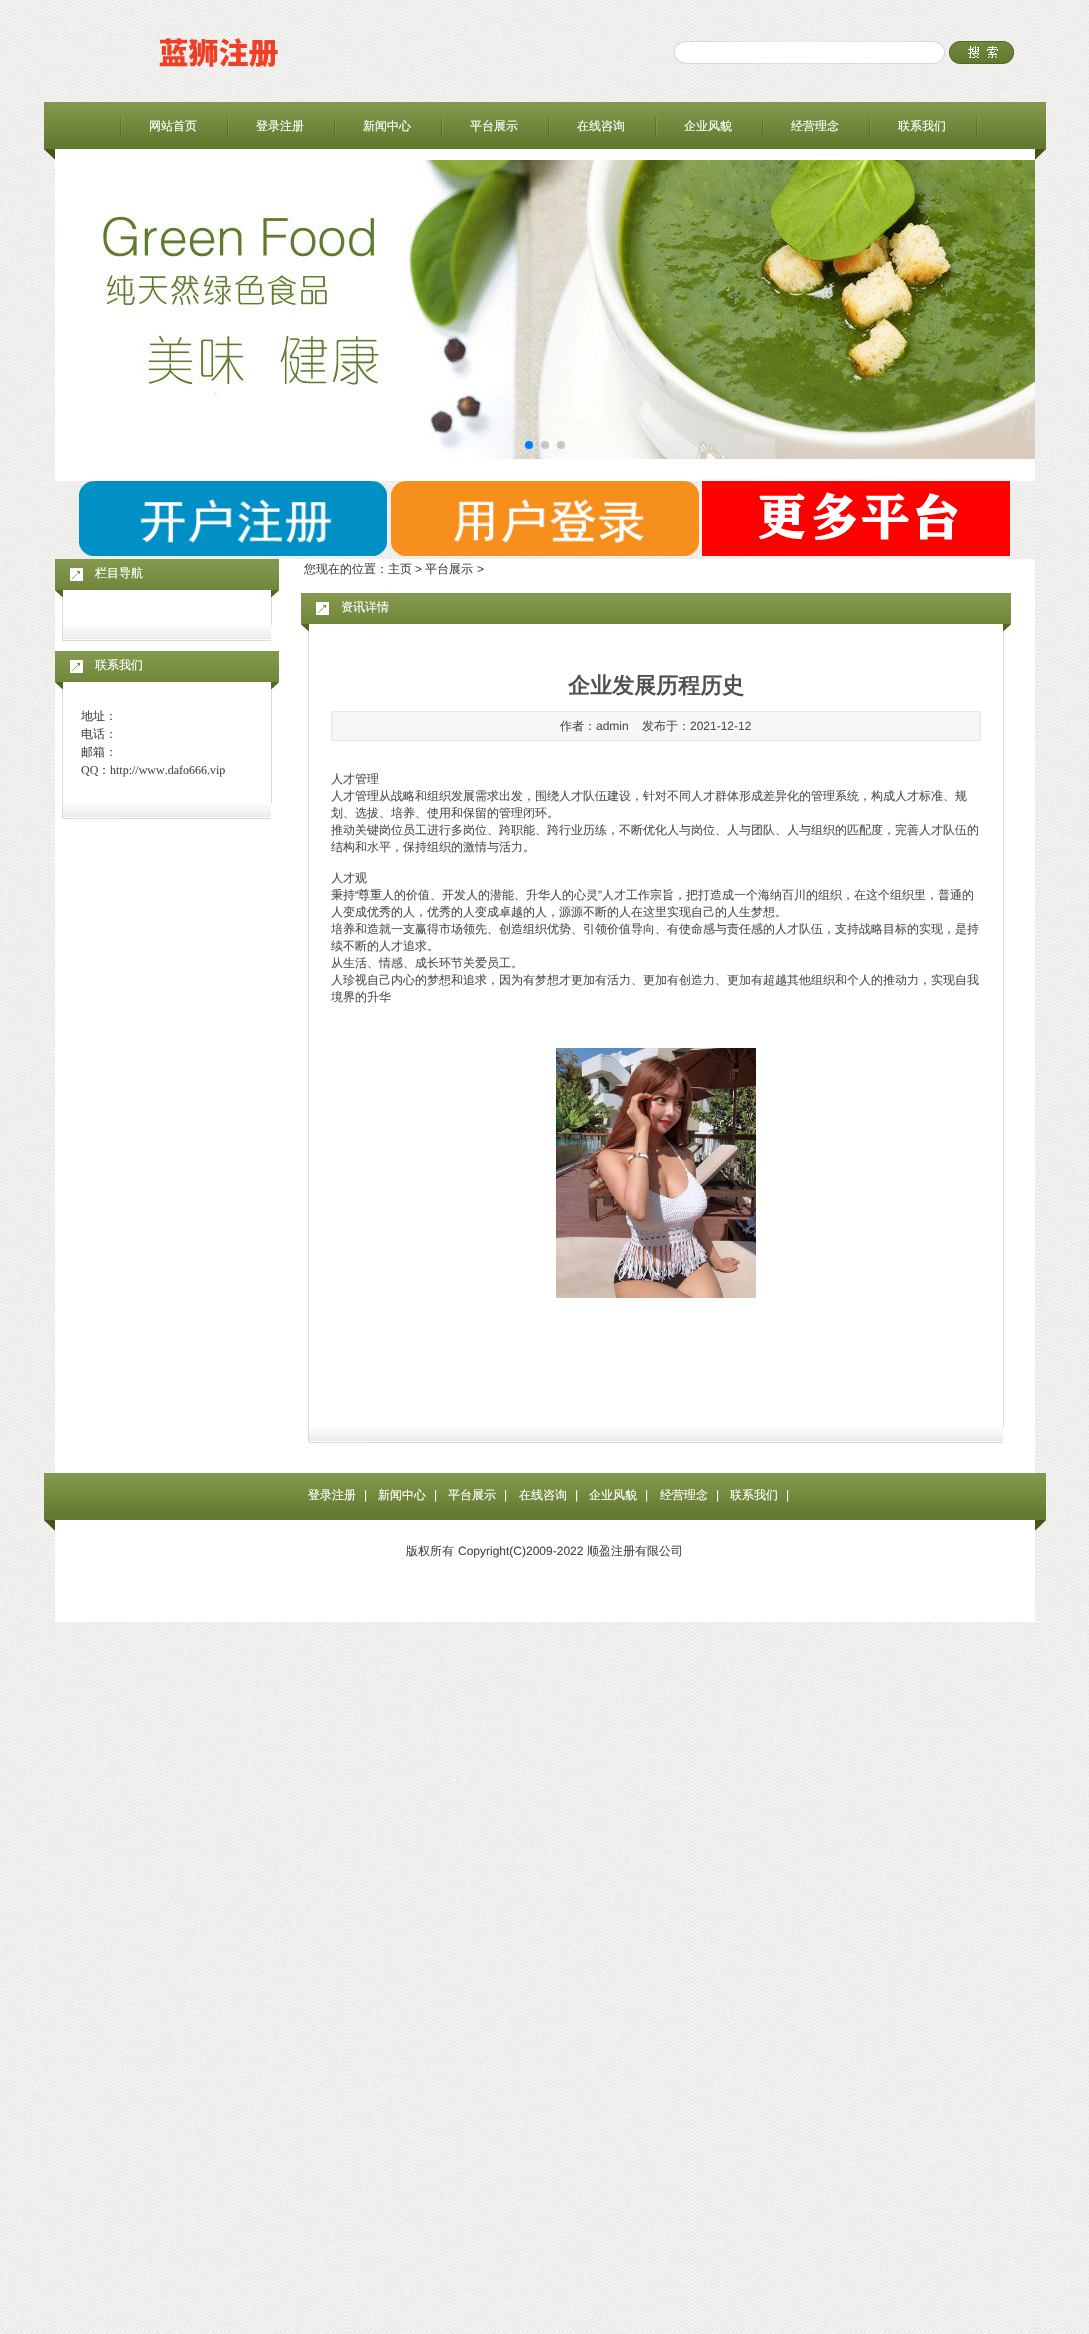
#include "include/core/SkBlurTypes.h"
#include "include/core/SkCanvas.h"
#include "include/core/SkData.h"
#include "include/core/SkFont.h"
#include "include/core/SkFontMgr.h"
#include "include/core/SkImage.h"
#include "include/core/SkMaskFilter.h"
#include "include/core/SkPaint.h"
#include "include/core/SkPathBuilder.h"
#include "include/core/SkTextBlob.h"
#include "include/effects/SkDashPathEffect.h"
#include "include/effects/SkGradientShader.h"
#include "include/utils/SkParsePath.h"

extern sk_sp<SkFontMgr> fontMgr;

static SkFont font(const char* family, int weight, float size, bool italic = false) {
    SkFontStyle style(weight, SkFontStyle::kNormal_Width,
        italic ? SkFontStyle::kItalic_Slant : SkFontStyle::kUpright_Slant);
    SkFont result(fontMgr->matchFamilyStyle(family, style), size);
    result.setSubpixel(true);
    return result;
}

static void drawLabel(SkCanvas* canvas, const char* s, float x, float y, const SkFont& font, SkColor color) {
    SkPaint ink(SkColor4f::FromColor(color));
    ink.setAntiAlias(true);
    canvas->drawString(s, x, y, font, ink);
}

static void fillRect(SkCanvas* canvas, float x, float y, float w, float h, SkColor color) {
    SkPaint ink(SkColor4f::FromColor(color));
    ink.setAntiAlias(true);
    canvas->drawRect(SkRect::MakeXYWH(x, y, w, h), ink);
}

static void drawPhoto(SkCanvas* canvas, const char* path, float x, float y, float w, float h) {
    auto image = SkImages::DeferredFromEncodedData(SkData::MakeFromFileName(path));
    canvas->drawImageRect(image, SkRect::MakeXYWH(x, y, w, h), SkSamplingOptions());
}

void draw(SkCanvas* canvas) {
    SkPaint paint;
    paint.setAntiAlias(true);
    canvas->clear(0xFFFFFFFF);
    drawPhoto(canvas, "assets/img1.png", 0, 0, 1089, 2334);
    drawPhoto(canvas, "assets/img2.png", 159, 38, 119, 30);
    drawPhoto(canvas, "assets/img3.png", 674, 41, 271, 23);
    drawPhoto(canvas, "assets/img4.png", 949, 41, 65, 23);
    drawPhoto(canvas, "assets/img5.png", 44, 102, 1002, 379);
    drawPhoto(canvas, "assets/img6.png", 120, 117, 2, 18);
    SkFont font1 = font("WenQuanYi Zen Hei", 500, 12);
    drawLabel(canvas, "网站首页", 149, 130, font1, 0xFFFFFFFF);
    drawPhoto(canvas, "assets/img6.png", 227, 117, 2, 18);
    drawLabel(canvas, "登录注册", 256, 130, font1, 0xFFFFFFFF);
    drawPhoto(canvas, "assets/img6.png", 334, 117, 2, 18);
    drawLabel(canvas, "新闻中心", 363, 130, font1, 0xFFFFFFFF);
    drawPhoto(canvas, "assets/img6.png", 441, 117, 2, 18);
    drawLabel(canvas, "平台展示", 470, 130, font1, 0xFFFFFFFF);
    drawPhoto(canvas, "assets/img6.png", 548, 117, 2, 18);
    drawLabel(canvas, "在线咨询", 577, 130, font1, 0xFFFFFFFF);
    drawPhoto(canvas, "assets/img6.png", 655, 117, 2, 18);
    drawLabel(canvas, "企业风貌", 684, 130, font1, 0xFFFFFFFF);
    drawPhoto(canvas, "assets/img6.png", 762, 117, 2, 18);
    drawLabel(canvas, "经营理念", 791, 130, font1, 0xFFFFFFFF);
    drawPhoto(canvas, "assets/img6.png", 869, 117, 2, 18);
    drawLabel(canvas, "联系我们", 898, 130, font1, 0xFFFFFFFF);
    drawPhoto(canvas, "assets/img7.png", 976, 117, 2, 21);
    drawPhoto(canvas, "assets/img8.png", 103, 160, 932, 299);
    paint.setColor(0xFF007AFF);
    canvas->drawCircle(529, 445, 4, paint);
    paint.setColor(0x33000000);
    canvas->drawCircle(545, 445, 4, paint);
    canvas->drawCircle(561, 445, 4, paint);
    drawPhoto(canvas, "assets/img9.png", 79, 481, 308, 75);
    drawPhoto(canvas, "assets/img10.png", 391, 481, 308, 75);
    drawPhoto(canvas, "assets/img11.png", 702, 481, 308, 75);
    fillRect(canvas, 55, 559, 980, 1063, 0xFFFFFFFF);
    fillRect(canvas, 62, 597, 1, 28, 0xFFDADADA);
    fillRect(canvas, 271, 597, 1, 28, 0xFFDADADA);
    drawPhoto(canvas, "assets/img12.png", 55, 559, 224, 38);
    drawLabel(canvas, "栏目导航", 95, 577, font1, 0xFFFFFFFF);
    drawPhoto(canvas, "assets/img13.png", 271, 590, 8, 7);
    drawPhoto(canvas, "assets/img14.png", 62, 625, 209, 16);
    drawLabel(canvas, "您现在的位置：主页", 304, 573, font1, 0xFF464646);
    SkFont font2 = font("Liberation Sans", 400, 12);
    drawLabel(canvas, ">", 415, 573, font2, 0xFF464646);
    drawLabel(canvas, "平台展示", 425, 573, font1, 0xFF464646);
    drawLabel(canvas, ">", 477, 573, font2, 0xFF464646);
    fillRect(canvas, 62, 689, 1, 114, 0xFFDADADA);
    fillRect(canvas, 271, 689, 1, 114, 0xFFDADADA);
    drawPhoto(canvas, "assets/img12.png", 55, 651, 224, 38);
    drawLabel(canvas, "联系我们", 95, 669, font1, 0xFFFFFFFF);
    drawPhoto(canvas, "assets/img13.png", 271, 682, 8, 7);
    drawLabel(canvas, "地址：", 81, 720, font1, 0xFF464646);
    drawLabel(canvas, "电话：", 81, 738, font1, 0xFF464646);
    drawLabel(canvas, "邮箱：", 81, 756, font1, 0xFF464646);
    SkFont font3 = font("Liberation Serif", 400, 12);
    drawLabel(canvas, "QQ", 81, 774, font3, 0xFF464646);
    drawLabel(canvas, "：", 98, 774, font1, 0xFF464646);
    drawLabel(canvas, "http://www.dafo666.vip", 110, 774, font3, 0xFF464646);
    drawPhoto(canvas, "assets/img14.png", 62, 803, 209, 16);
    fillRect(canvas, 308, 631, 1, 796, 0xFFDADADA);
    fillRect(canvas, 1003, 631, 1, 796, 0xFFDADADA);
    drawPhoto(canvas, "assets/img15.png", 301, 593, 710, 38);
    drawLabel(canvas, "资讯详情", 341, 611, font1, 0xFFFFFFFF);
    drawPhoto(canvas, "assets/img13.png", 1003, 624, 8, 7);
    SkFont font4 = font("WenQuanYi Zen Hei", 700, 22);
    drawLabel(canvas, "企业发展历程历史", 568, 693, font4, 0xFF505050);
    paint.setColor(0xFFF7F7F7);
    canvas->drawRect(SkRect::MakeXYWH(331.5f, 711.5f, 649, 29), paint);
    paint.setStroke(true);
    paint.setStrokeWidth(1);
    paint.setColor(0xFFE8E8E8);
    canvas->drawRect(SkRect::MakeXYWH(331.5f, 711.5f, 649, 29), paint);
    drawLabel(canvas, "作者：", 560, 730, font1, 0xFF505050);
    drawLabel(canvas, "admin", 596, 730, font2, 0xFF505050);
    drawLabel(canvas, "发布于：", 642, 730, font1, 0xFF505050);
    drawLabel(canvas, "2021-12-12", 690, 730, font2, 0xFF505050);
    drawLabel(canvas, "人才管理", 331, 783, font1, 0xFF505050);
    drawLabel(canvas, "人才管理从战略和组织发展需求出发，围绕人才队伍建设，针对不同人才群体形成差异化的管理系统，构成人才标准、规", 331, 800, font1, 0xFF505050);
    drawLabel(canvas, "划、选拔、培养、使用和保留的管理闭环。", 331, 817, font1, 0xFF505050);
    drawLabel(canvas, "推动关键岗位员工进行多岗位、跨职能、跨行业历练，不断优化人与岗位、人与团队、人与组织的匹配度，完善人才队伍的", 331, 834, font1, 0xFF505050);
    drawLabel(canvas, "结构和水平，保持组织的激情与活力。", 331, 851, font1, 0xFF505050);
    drawLabel(canvas, "人才观", 331, 882, font1, 0xFF505050);
    drawLabel(canvas, "秉持", 331, 899, font1, 0xFF505050);
    drawLabel(canvas, "“", 355, 899, font2, 0xFF505050);
    drawLabel(canvas, "尊重人的价值、开发人的潜能、升华人的心灵", 358, 899, font1, 0xFF505050);
    drawLabel(canvas, "”", 598, 899, font2, 0xFF505050);
    drawLabel(canvas, "人才工作宗旨，把打造成一个海纳百川的组织，在这个组织里，普通的", 602, 899, font1, 0xFF505050);
    drawLabel(canvas, "人变成优秀的人，优秀的人变成卓越的人，源源不断的人在这里实现自己的人生梦想。", 331, 916, font1, 0xFF505050);
    drawLabel(canvas, "培养和造就一支赢得市场领先、创造组织优势、引领价值导向、有使命感与责任感的人才队伍，支持战略目标的实现，是持", 331, 933, font1, 0xFF505050);
    drawLabel(canvas, "续不断的人才追求。", 331, 950, font1, 0xFF505050);
    drawLabel(canvas, "从生活、情感、成长环节关爱员工。", 331, 967, font1, 0xFF505050);
    drawLabel(canvas, "人珍视自己内心的梦想和追求，因为有梦想才更加有活力、更加有创造力、更加有超越其他组织和个人的推动力，实现自我", 331, 984, font1, 0xFF505050);
    drawLabel(canvas, "境界的升华", 331, 1001, font1, 0xFF505050);
    drawPhoto(canvas, "assets/img16.png", 556, 1048, 200, 250);
    drawPhoto(canvas, "assets/img17.png", 308, 1427, 695, 16);
    drawPhoto(canvas, "assets/img18.png", 44, 1473, 1002, 59);
    drawLabel(canvas, "登录注册", 308, 1499, font1, 0xFFFFFFFF);
    drawLabel(canvas, "|", 364, 1499, font2, 0xFFFFFFFF);
    drawLabel(canvas, "新闻中心", 378, 1499, font1, 0xFFFFFFFF);
    drawLabel(canvas, "|", 434, 1499, font2, 0xFFFFFFFF);
    drawLabel(canvas, "平台展示", 448, 1499, font1, 0xFFFFFFFF);
    drawLabel(canvas, "|", 504, 1499, font2, 0xFFFFFFFF);
    drawLabel(canvas, "在线咨询", 519, 1499, font1, 0xFFFFFFFF);
    drawLabel(canvas, "|", 575, 1499, font2, 0xFFFFFFFF);
    drawLabel(canvas, "企业风貌", 589, 1499, font1, 0xFFFFFFFF);
    drawLabel(canvas, "|", 645, 1499, font2, 0xFFFFFFFF);
    drawLabel(canvas, "经营理念", 660, 1499, font1, 0xFFFFFFFF);
    drawLabel(canvas, "|", 716, 1499, font2, 0xFFFFFFFF);
    drawLabel(canvas, "联系我们", 730, 1499, font1, 0xFFFFFFFF);
    drawLabel(canvas, "|", 786, 1499, font2, 0xFFFFFFFF);
    drawLabel(canvas, "版权所有", 406, 1555, font1, 0xFF464646);
    drawLabel(canvas, "Copyright(C)2009-2022", 458, 1555, font2, 0xFF464646);
    drawLabel(canvas, "顺盈注册有限公司", 587, 1555, font1, 0xFF464646);
}
